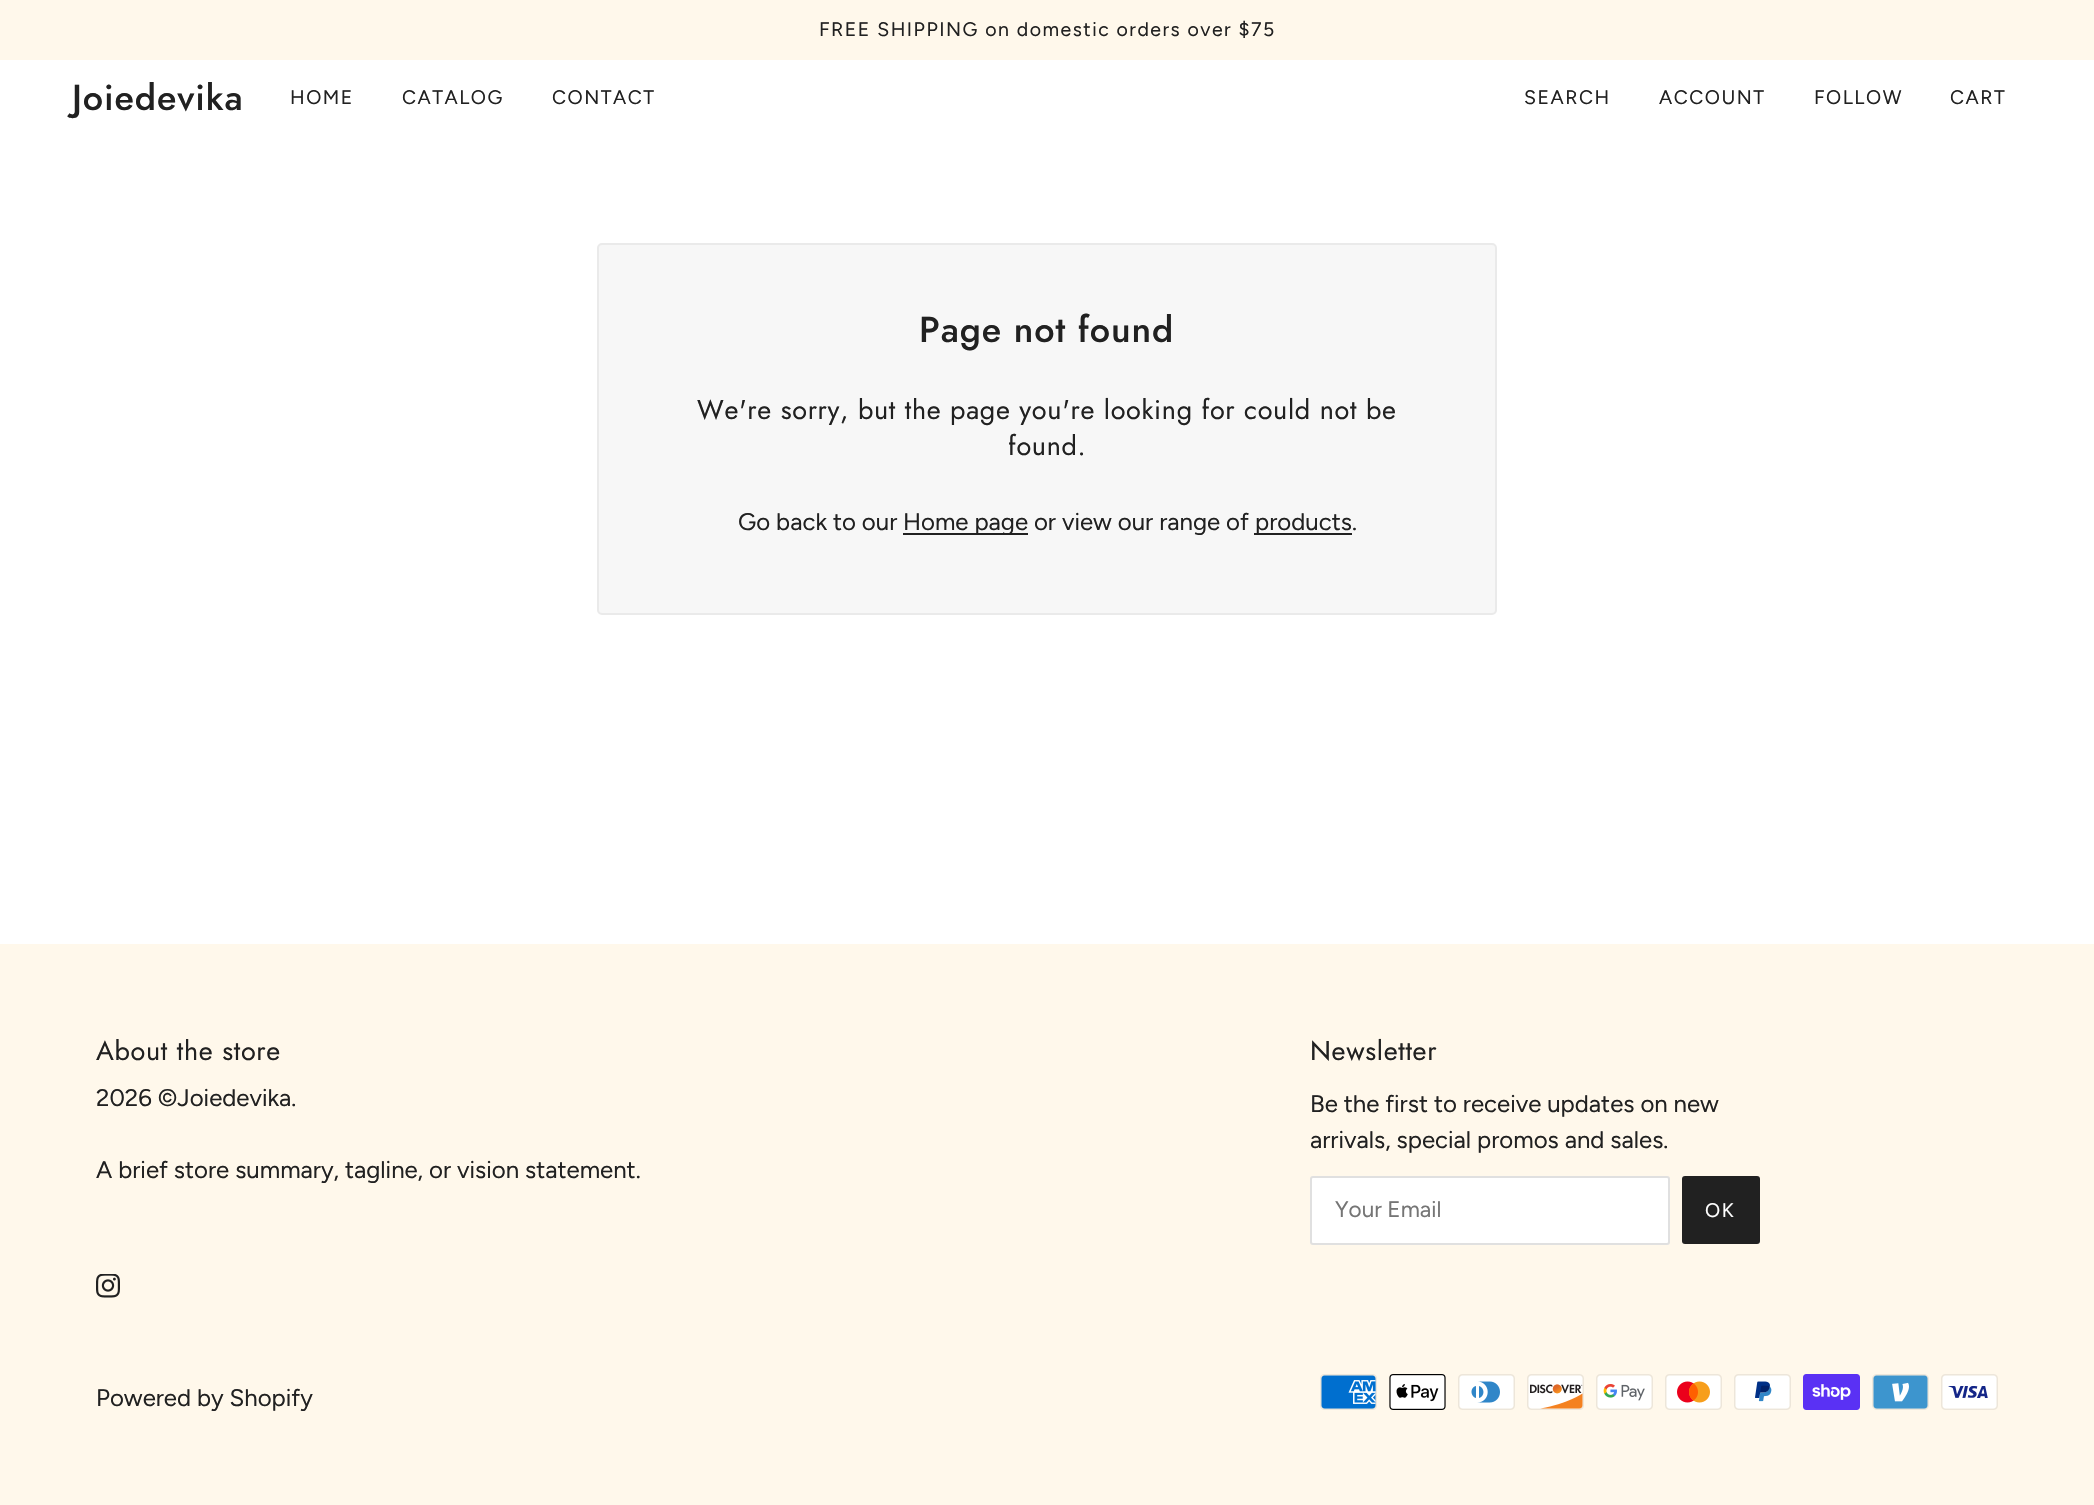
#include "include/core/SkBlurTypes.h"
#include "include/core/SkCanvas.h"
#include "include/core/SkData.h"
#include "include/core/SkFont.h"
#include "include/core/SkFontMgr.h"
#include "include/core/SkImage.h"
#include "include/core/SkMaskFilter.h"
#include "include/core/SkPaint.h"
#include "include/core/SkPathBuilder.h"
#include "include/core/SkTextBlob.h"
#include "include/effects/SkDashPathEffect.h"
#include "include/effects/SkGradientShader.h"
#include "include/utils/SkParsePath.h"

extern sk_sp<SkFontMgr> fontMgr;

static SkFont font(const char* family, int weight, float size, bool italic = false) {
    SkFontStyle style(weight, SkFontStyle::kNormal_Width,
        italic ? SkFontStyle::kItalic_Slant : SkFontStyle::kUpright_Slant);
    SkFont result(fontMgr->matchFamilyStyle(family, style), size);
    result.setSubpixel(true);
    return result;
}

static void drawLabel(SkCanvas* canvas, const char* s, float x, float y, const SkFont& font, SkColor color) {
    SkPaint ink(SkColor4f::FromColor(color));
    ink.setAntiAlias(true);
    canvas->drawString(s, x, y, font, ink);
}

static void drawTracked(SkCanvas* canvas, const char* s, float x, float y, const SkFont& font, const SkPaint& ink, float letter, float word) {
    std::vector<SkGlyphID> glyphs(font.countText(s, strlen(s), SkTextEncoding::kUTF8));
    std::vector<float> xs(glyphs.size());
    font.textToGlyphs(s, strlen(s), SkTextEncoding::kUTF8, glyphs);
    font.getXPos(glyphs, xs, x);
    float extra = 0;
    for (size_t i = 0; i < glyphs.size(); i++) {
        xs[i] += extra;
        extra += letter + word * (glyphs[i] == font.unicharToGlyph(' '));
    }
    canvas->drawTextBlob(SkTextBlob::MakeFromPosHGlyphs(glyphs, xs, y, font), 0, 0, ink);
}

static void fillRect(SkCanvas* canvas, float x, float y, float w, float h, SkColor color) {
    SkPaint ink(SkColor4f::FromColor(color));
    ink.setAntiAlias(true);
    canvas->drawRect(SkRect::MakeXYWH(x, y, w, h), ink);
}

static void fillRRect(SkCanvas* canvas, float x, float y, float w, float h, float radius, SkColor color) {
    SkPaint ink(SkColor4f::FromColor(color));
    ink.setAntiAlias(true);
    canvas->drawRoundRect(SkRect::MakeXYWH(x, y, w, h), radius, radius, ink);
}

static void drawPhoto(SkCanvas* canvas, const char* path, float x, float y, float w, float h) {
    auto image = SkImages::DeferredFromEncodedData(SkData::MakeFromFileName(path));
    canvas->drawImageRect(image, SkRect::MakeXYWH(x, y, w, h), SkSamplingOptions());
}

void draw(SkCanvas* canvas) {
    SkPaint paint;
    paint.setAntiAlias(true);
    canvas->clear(0xFFFFFFFF);
    fillRect(canvas, 0, 0, 2094, 60, 0xFFFFF8EB);
    SkFont font1 = font("Figtree", 400, 19.5f);
    paint.setColor(0xFF212121);
    drawTracked(canvas, "FREE SHIPPING on domestic orders over $75", 819, 36, font1, paint, 1.5f, 0);
    SkFont font2 = font("Jost", 500, 36);
    drawTracked(canvas, "Joiedevika", 72, 110, font2, paint, 0.9f, 0);
    drawTracked(canvas, "HOME", 290, 104, font1, paint, 1.5f, 0);
    drawTracked(canvas, "CATALOG", 402, 104, font1, paint, 1.5f, 0);
    drawTracked(canvas, "CONTACT", 552, 104, font1, paint, 1.5f, 0);
    drawTracked(canvas, "SEARCH", 1524, 104, font1, paint, 1.5f, 0);
    drawTracked(canvas, "ACCOUNT", 1659, 104, font1, paint, 1.5f, 0);
    drawTracked(canvas, "FOLLOW", 1814, 104, font1, paint, 1.5f, 0);
    drawTracked(canvas, "CART", 1950, 104, font1, paint, 1.5f, 0);
    paint.setColor(0xFFF7F7F7);
    canvas->drawRoundRect(SkRect::MakeXYWH(598, 244, 898, 370), 4, 4, paint);
    paint.setStroke(true);
    paint.setStrokeWidth(2);
    paint.setColor(0xFFEAEAEA);
    canvas->drawRoundRect(SkRect::MakeXYWH(598, 244, 898, 370), 4, 4, paint);
    paint.setStroke(false);
    paint.setColor(0xFF212121);
    drawTracked(canvas, "Page not found", 919, 342, font2, paint, 0.9f, 0);
    SkFont font3 = font("Jost", 400, 27);
    drawTracked(canvas, "We're sorry, but the page you're looking for could not be", 697, 419, font3, paint, 0.68f, 0);
    drawTracked(canvas, "found.", 1008, 455, font3, paint, 0.68f, 0);
    SkFont font4 = font("Figtree", 400, 24);
    drawLabel(canvas, "Go back to our", 738, 530, font4, 0xFF212121);
    fillRect(canvas, 903, 533, 125, 2, 0xFF212121);
    drawLabel(canvas, "Home page or view our range of", 903, 530, font4, 0xFF212121);
    fillRect(canvas, 1254, 533, 98, 2, 0xFF212121);
    drawLabel(canvas, "products.", 1255, 530, font4, 0xFF212121);
    fillRect(canvas, 0, 944, 2094, 561, 0xFFFFF8EB);
    drawTracked(canvas, "About the store", 96, 1060, font3, paint, 0.68f, 0);
    drawLabel(canvas, "2026 ©Joiedevika.", 96, 1106, font4, 0xFF212121);
    drawLabel(canvas, "A brief store summary, tagline, or vision statement.", 96, 1178, font4, 0xFF212121);
    drawPhoto(canvas, "assets/img1.png", 96, 1274, 24, 24);
    drawTracked(canvas, "Newsletter", 1310, 1060, font3, paint, 0.68f, 0);
    drawLabel(canvas, "Be the first to receive updates on new", 1310, 1112, font4, 0xFF212121);
    drawLabel(canvas, "arrivals, special promos and sales.", 1310, 1148, font4, 0xFF212121);
    paint.setColor(0xFFFFFFFF);
    canvas->drawRoundRect(SkRect::MakeXYWH(1311, 1177, 358, 67), 2, 2, paint);
    paint.setStroke(true);
    paint.setColor(0xFFE0E0E0);
    canvas->drawRoundRect(SkRect::MakeXYWH(1311, 1177, 358, 67), 2, 2, paint);
    SkFont font5 = font("Figtree", 400, 22.5f);
    drawLabel(canvas, "Your Email", 1335, 1217, font5, 0xFF757575);
    fillRRect(canvas, 1682, 1176, 78, 68, 3, 0xFF212121);
    paint.setStroke(false);
    paint.setColor(0xFFFFFFFF);
    drawTracked(canvas, "OK", 1705, 1217, font1, paint, 1.5f, 0);
    drawLabel(canvas, "Powered by Shopify", 96, 1406, font4, 0xFF212121);
    drawPhoto(canvas, "assets/img2.png", 1320, 1374, 57, 36);
    drawPhoto(canvas, "assets/img3.png", 1389, 1374, 57, 36);
    drawPhoto(canvas, "assets/img4.png", 1458, 1374, 57, 36);
    drawPhoto(canvas, "assets/img5.png", 1527, 1374, 57, 36);
    drawPhoto(canvas, "assets/img6.png", 1596, 1374, 57, 36);
    drawPhoto(canvas, "assets/img7.png", 1665, 1374, 57, 36);
    drawPhoto(canvas, "assets/img8.png", 1734, 1374, 57, 36);
    drawPhoto(canvas, "assets/img9.png", 1803, 1374, 57, 36);
    drawPhoto(canvas, "assets/img10.png", 1872, 1374, 57, 36);
    drawPhoto(canvas, "assets/img11.png", 1941, 1374, 57, 36);
}
